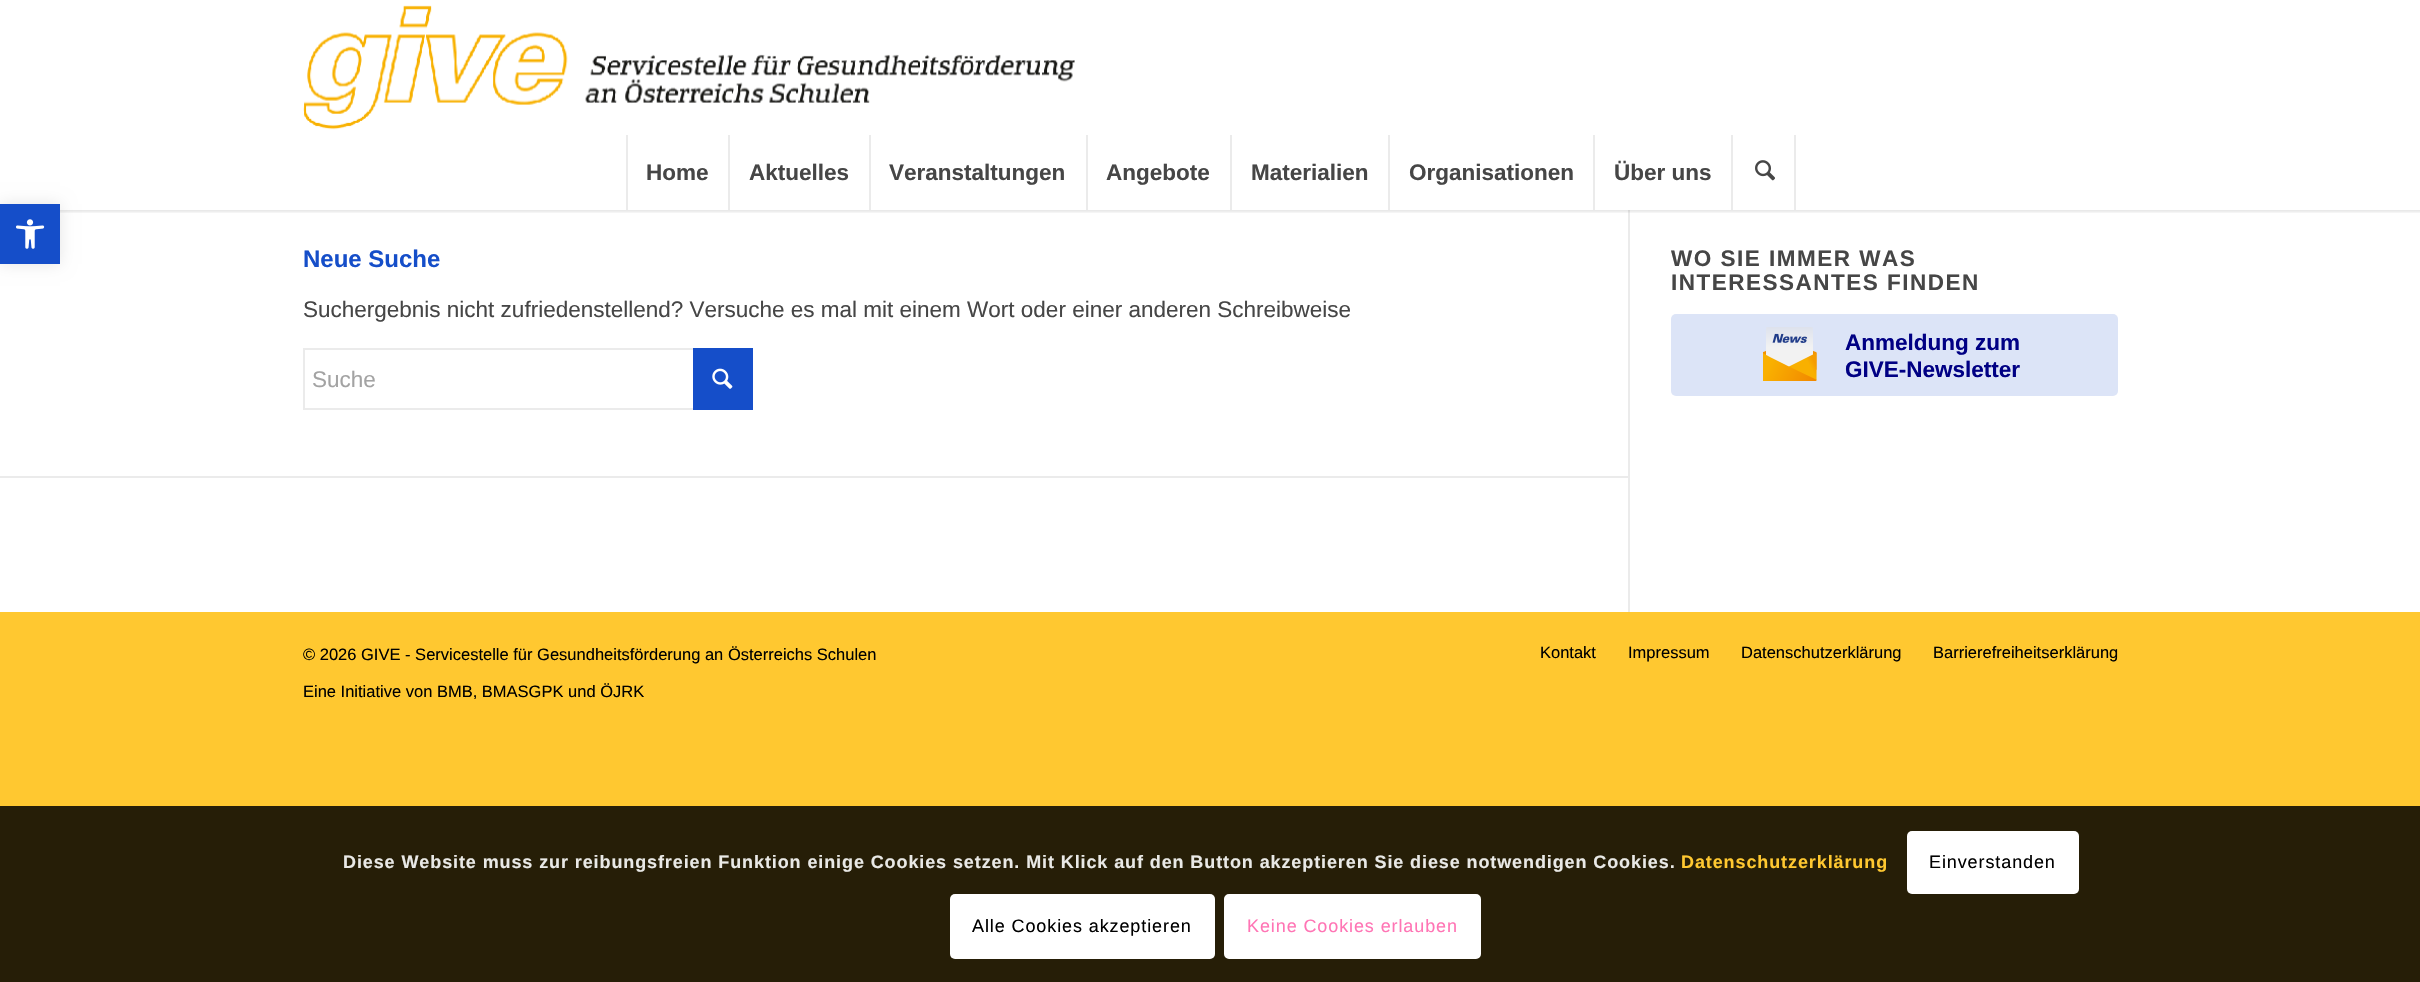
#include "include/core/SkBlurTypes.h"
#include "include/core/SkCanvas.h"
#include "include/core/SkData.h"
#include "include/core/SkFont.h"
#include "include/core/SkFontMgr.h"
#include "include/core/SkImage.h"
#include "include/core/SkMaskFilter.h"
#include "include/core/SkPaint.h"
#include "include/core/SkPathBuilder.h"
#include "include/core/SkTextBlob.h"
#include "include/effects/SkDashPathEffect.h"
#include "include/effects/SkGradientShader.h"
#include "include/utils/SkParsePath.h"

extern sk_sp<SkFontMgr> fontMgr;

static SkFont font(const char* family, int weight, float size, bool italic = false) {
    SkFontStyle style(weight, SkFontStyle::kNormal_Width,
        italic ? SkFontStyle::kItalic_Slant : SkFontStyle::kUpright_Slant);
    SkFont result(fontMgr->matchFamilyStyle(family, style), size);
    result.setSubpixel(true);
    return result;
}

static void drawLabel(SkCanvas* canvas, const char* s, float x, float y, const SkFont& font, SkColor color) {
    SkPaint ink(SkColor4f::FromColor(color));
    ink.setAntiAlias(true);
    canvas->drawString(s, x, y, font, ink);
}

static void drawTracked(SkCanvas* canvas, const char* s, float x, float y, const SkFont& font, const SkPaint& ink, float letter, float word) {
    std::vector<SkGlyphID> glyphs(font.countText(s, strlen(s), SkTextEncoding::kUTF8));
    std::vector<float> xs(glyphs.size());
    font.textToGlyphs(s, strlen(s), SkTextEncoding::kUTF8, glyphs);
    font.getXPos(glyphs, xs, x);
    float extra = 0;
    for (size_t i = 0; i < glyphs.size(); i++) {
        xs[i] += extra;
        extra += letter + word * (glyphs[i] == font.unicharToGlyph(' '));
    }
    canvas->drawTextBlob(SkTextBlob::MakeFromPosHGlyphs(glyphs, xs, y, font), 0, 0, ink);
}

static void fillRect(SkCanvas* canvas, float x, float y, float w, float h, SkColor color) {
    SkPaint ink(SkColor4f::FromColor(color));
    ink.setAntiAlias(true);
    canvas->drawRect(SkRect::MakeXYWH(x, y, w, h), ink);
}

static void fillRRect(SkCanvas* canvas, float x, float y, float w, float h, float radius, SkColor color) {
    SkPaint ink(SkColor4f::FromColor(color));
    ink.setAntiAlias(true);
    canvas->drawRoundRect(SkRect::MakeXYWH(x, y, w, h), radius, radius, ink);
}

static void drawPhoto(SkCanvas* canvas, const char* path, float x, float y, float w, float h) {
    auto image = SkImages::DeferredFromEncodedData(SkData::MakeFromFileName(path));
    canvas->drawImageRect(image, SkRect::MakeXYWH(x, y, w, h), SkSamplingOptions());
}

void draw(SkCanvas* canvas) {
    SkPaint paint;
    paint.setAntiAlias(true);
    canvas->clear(0xFFFFC830);
    fillRect(canvas, 0, 0, 2420, 612, 0xFFFFFFFF);
    paint.setColor(0x1A000000);
    paint.setMaskFilter(SkMaskFilter::MakeBlur(kNormal_SkBlurStyle, 7.5f));
    canvas->drawRect(SkRect::MakeXYWH(0, 204, 60, 60), paint);
    paint.setMaskFilter(nullptr);
    fillRect(canvas, 1628, 210, 2, 402, 0xFFEBEBEB);
    canvas->save();
    canvas->clipRect(SkRect::MakeXYWH(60, 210, 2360, 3));
    paint.setMaskFilter(SkMaskFilter::MakeBlur(kNormal_SkBlurStyle, 1.5f));
    canvas->drawRect(SkRect::MakeXYWH(-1, -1, 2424, 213), paint);
    paint.setMaskFilter(nullptr);
    canvas->restore();
    fillRect(canvas, 0, 204, 60, 60, 0xFF154EC9);
    drawPhoto(canvas, "assets/img1.png", 16, 219, 29, 30);
    drawPhoto(canvas, "assets/img2.png", 303, 5, 772, 125);
    fillRect(canvas, 1794, 135, 2, 75, 0xFFEBEBEB);
    fillRect(canvas, 626, 135, 2, 75, 0xFFEBEBEB);
    SkFont font1 = font("Liberation Sans", 700, 22.5f);
    drawLabel(canvas, "Home", 646, 180, font1, 0xFF464646);
    fillRect(canvas, 728, 135, 2, 75, 0xFFEBEBEB);
    drawLabel(canvas, "Aktuelles", 749, 180, font1, 0xFF464646);
    fillRect(canvas, 869, 135, 2, 75, 0xFFEBEBEB);
    drawLabel(canvas, "Veranstaltungen", 889, 180, font1, 0xFF464646);
    fillRect(canvas, 1086, 135, 2, 75, 0xFFEBEBEB);
    drawLabel(canvas, "Angebote", 1106, 180, font1, 0xFF464646);
    fillRect(canvas, 1230, 135, 2, 75, 0xFFEBEBEB);
    drawLabel(canvas, "Materialien", 1251, 180, font1, 0xFF464646);
    fillRect(canvas, 1388, 135, 2, 75, 0xFFEBEBEB);
    drawLabel(canvas, "Organisationen", 1409, 180, font1, 0xFF464646);
    fillRect(canvas, 1593, 135, 2, 75, 0xFFEBEBEB);
    drawLabel(canvas, "Über uns", 1614, 180, font1, 0xFF464646);
    fillRect(canvas, 1731, 135, 2, 75, 0xFFEBEBEB);
    drawPhoto(canvas, "assets/img3.png", 1755, 160, 20, 21);
    SkFont font2 = font("Liberation Sans", 700, 24);
    drawLabel(canvas, "Neue Suche", 303, 267, font2, 0xFF154EC9);
    SkFont font3 = font("Liberation Sans", 400, 22.5f);
    drawLabel(canvas, "Suchergebnis nicht zufriedenstellend? Versuche es mal mit einem Wort oder einer anderen Schreibweise", 303, 317, font3, 0xFF464646);
    paint.setStroke(true);
    paint.setStrokeWidth(2);
    paint.setColor(0xFFEBEBEB);
    canvas->drawRect(SkRect::MakeXYWH(304, 349, 448, 60), paint);
    fillRect(canvas, 693, 348, 60, 62, 0xFF154EC9);
    drawLabel(canvas, "Suche", 312, 387, font3, 0xFFA3A3A3);
    drawPhoto(canvas, "assets/img4.png", 712, 368, 21, 21);
    fillRect(canvas, 0, 476, 1628, 2, 0xFFEBEBEB);
    paint.setStroke(false);
    paint.setColor(0xFF464646);
    drawTracked(canvas, "WO SIE IMMER WAS", 1671, 266, font1, paint, 1.5f, 0);
    drawTracked(canvas, "INTERESSANTES FINDEN", 1671, 290, font1, paint, 1.5f, 0);
    fillRRect(canvas, 1671, 314, 447, 82, 5, 0xFFDCE4F7);
    drawPhoto(canvas, "assets/img5.png", 1763, 327, 54, 54);
    drawLabel(canvas, "Anmeldung zum", 1845, 350, font1, 0xFF000084);
    drawLabel(canvas, "GIVE-Newsletter", 1845, 377, font1, 0xFF000084);
    SkFont font4 = font("Liberation Sans", 400, 16.5f);
    drawLabel(canvas, "© 2026 GIVE - Servicestelle für Gesundheitsförderung an Österreichs Schulen", 303, 660, font4, 0xFF000000);
    drawLabel(canvas, "Eine Initiative von BMB, BMASGPK und ÖJRK", 303, 697, font4, 0xFF000000);
    drawLabel(canvas, "Kontakt", 1540, 658, font4, 0xFF000000);
    drawLabel(canvas, "Impressum", 1628, 658, font4, 0xFF000000);
    drawLabel(canvas, "Datenschutzerklärung", 1741, 658, font4, 0xFF000000);
    drawLabel(canvas, "Barrierefreiheitserklärung", 1933, 658, font4, 0xFF000000);
    fillRect(canvas, 0, 806, 2420, 176, 0xFF261E07);
    SkFont font5 = font("Liberation Sans", 700, 18);
    paint.setColor(0xFFE9E9E6);
    drawTracked(canvas, "Diese Website muss zur reibungsfreien Funktion einige Cookies setzen. Mit Klick auf den Button akzeptieren Sie diese notwendigen Cookies.", 343, 868, font5, paint, 0.9f, 0);
    paint.setColor(0xFFFFC830);
    drawTracked(canvas, "Datenschutzerklärung", 1681, 868, font5, paint, 0.9f, 0);
    fillRRect(canvas, 1907, 831, 172, 63, 5, 0xFFFFFFFF);
    SkFont font6 = font("Liberation Sans", 400, 18);
    paint.setColor(0xFF000000);
    drawTracked(canvas, "Einverstanden", 1929, 868, font6, paint, 0.9f, 0);
    fillRRect(canvas, 950, 894, 265, 65, 5, 0xFFFFFFFF);
    drawTracked(canvas, "Alle Cookies akzeptieren", 972, 932, font6, paint, 0.9f, 0);
    paint.setColor(0xFFFFFFFF);
    canvas->drawRoundRect(SkRect::MakeXYWH(1225.5f, 895.5f, 254, 62), 3.5f, 3.5f, paint);
    paint.setStroke(true);
    paint.setStrokeWidth(3);
    canvas->drawRoundRect(SkRect::MakeXYWH(1225.5f, 895.5f, 254, 62), 3.5f, 3.5f, paint);
    paint.setStroke(false);
    paint.setColor(0xFFFF75B5);
    drawTracked(canvas, "Keine Cookies erlauben", 1247, 932, font6, paint, 0.9f, 0);
}
